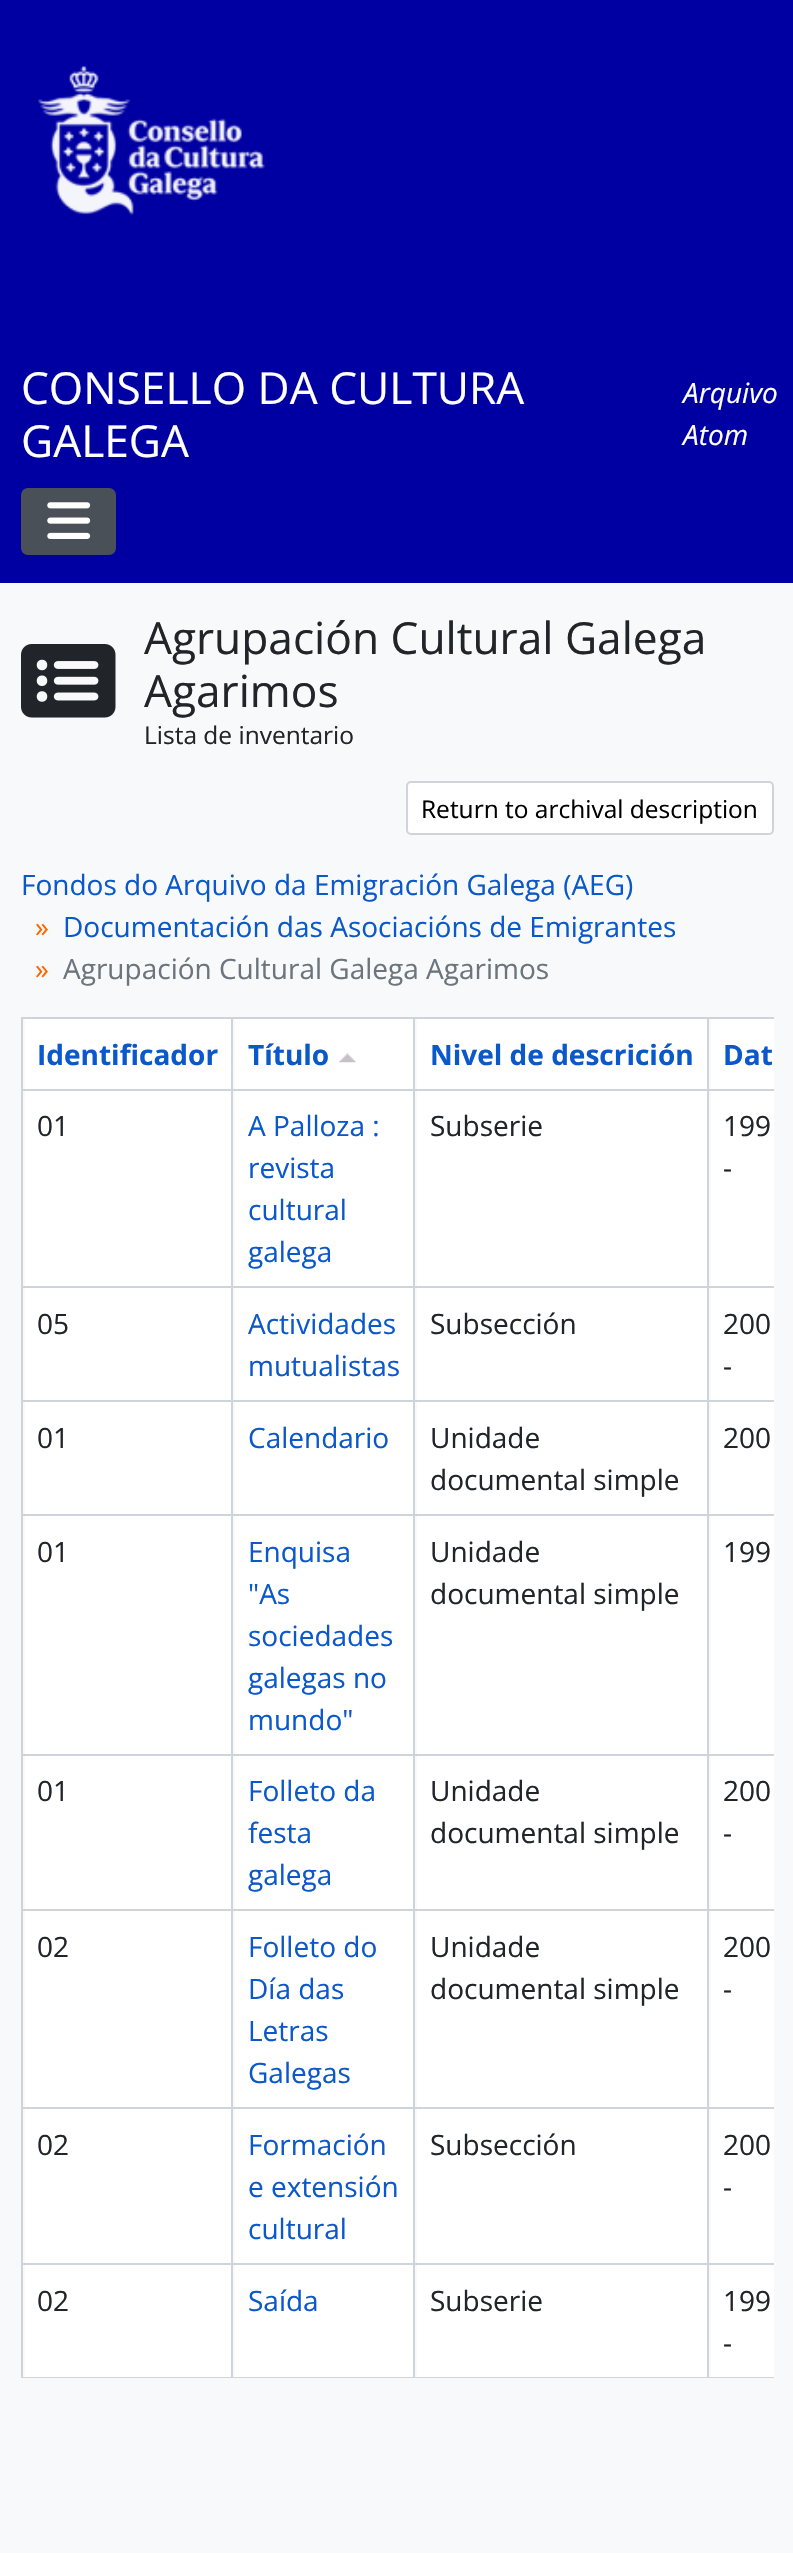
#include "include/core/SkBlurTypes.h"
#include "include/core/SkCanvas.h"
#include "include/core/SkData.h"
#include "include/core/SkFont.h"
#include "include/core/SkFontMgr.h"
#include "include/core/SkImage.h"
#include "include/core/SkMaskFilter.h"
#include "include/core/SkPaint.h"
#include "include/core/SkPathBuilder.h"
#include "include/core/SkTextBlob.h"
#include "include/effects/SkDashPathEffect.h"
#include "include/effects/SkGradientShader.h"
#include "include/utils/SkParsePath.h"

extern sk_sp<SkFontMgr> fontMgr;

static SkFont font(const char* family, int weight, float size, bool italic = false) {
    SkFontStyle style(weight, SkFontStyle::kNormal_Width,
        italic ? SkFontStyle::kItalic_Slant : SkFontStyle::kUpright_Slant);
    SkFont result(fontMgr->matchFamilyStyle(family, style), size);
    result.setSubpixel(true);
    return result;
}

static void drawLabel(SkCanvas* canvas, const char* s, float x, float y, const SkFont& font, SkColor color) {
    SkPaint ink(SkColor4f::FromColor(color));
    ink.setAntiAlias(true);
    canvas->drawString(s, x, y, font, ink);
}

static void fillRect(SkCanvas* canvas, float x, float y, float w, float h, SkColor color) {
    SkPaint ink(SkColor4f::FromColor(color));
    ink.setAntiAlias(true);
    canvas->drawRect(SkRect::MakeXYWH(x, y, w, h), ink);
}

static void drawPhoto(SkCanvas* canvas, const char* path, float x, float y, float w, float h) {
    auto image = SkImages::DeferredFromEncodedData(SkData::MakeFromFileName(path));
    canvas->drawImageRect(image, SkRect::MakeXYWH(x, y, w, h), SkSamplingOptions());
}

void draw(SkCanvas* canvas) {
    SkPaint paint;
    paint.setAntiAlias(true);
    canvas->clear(0xFFF8F9FA);
    fillRect(canvas, 0, 0, 793, 583, 0xFF0000A2);
    drawPhoto(canvas, "assets/img1.png", 38, 66, 227, 150);
    SkFont font1 = font("Open Sans", 400, 44.25f);
    drawLabel(canvas, "CONSELLO DA CULTURA", 21, 404, font1, 0xFFFFFFFF);
    drawLabel(canvas, "GALEGA", 21, 457, font1, 0xFFFFFFFF);
    SkFont font2 = font("Open Sans", 400, 28, true);
    drawLabel(canvas, "Arquivo", 683, 403, font2, 0xFFFFFFFF);
    drawLabel(canvas, "Atom", 683, 445, font2, 0xFFFFFFFF);
    paint.setColor(0xFF495057);
    canvas->drawRoundRect(SkRect::MakeXYWH(22, 489, 93, 65), 6, 6, paint);
    paint.setStroke(true);
    paint.setStrokeWidth(2);
    canvas->drawRoundRect(SkRect::MakeXYWH(22, 489, 93, 65), 6, 6, paint);
    drawPhoto(canvas, "assets/img2.png", 47, 502, 44, 37);
    drawPhoto(canvas, "assets/img3.png", 21, 644, 95, 74);
    drawLabel(canvas, "Agrupación Cultural Galega", 144, 654, font1, 0xFF212529);
    drawLabel(canvas, "Agarimos", 144, 707, font1, 0xFF212529);
    SkFont font3 = font("Open Sans", 400, 24.5f);
    drawLabel(canvas, "Lista de inventario", 144, 744, font3, 0xFF212529);
    paint.setStroke(false);
    paint.setColor(0xFFFFFFFF);
    canvas->drawRoundRect(SkRect::MakeXYWH(407, 782, 366, 52), 4, 4, paint);
    paint.setStroke(true);
    paint.setColor(0xFFCED4DA);
    canvas->drawRoundRect(SkRect::MakeXYWH(407, 782, 366, 52), 4, 4, paint);
    drawLabel(canvas, "Return to archival description", 421, 818, font3, 0xFF000000);
    SkFont font4 = font("Open Sans", 400, 28);
    drawLabel(canvas, "Fondos do Arquivo da Emigración Galega (AEG)", 21, 895, font4, 0xFF0A58CA);
    drawLabel(canvas, "»", 35, 937, font4, 0xFFFF6600);
    drawLabel(canvas, "Documentación das Asociacións de Emigrantes", 63, 937, font4, 0xFF0A58CA);
    drawLabel(canvas, "»", 35, 979, font4, 0xFFFF6600);
    drawLabel(canvas, "Agrupación Cultural Galega Agarimos", 63, 979, font4, 0xFF6C757D);
    fillRect(canvas, 21, 1017, 753, 2, 0xFFCED4DA);
    fillRect(canvas, 25, 1019, 206, 70, 0xFFFFFFFF);
    SkFont font5 = font("Open Sans", 700, 28);
    drawLabel(canvas, "Identificador", 37, 1065, font5, 0xFF0A58CA);
    fillRect(canvas, 235, 1019, 178, 70, 0xFFFFFFFF);
    drawLabel(canvas, "Título", 248, 1065, font5, 0xFF0A58CA);
    drawPhoto(canvas, "assets/img4.png", 339, 1053, 17, 10);
    fillRect(canvas, 417, 1019, 290, 70, 0xFFFFFFFF);
    drawLabel(canvas, "Nivel de descrición", 430, 1065, font5, 0xFF0A58CA);
    fillRect(canvas, 711, 1019, 63, 70, 0xFFFFFFFF);
    drawLabel(canvas, "Dat", 723, 1065, font5, 0xFF0A58CA);
    fillRect(canvas, 21, 1089, 753, 2, 0xFFCED4DA);
    fillRect(canvas, 25, 1091, 206, 195, 0xFFFFFFFF);
    drawLabel(canvas, "01", 37, 1136, font4, 0xFF212529);
    fillRect(canvas, 235, 1091, 178, 195, 0xFFFFFFFF);
    drawLabel(canvas, "A Palloza :", 248, 1136, font4, 0xFF0A58CA);
    drawLabel(canvas, "revista", 248, 1178, font4, 0xFF0A58CA);
    drawLabel(canvas, "cultural", 248, 1220, font4, 0xFF0A58CA);
    drawLabel(canvas, "galega", 248, 1262, font4, 0xFF0A58CA);
    fillRect(canvas, 417, 1091, 290, 195, 0xFFFFFFFF);
    drawLabel(canvas, "Subserie", 430, 1136, font4, 0xFF212529);
    fillRect(canvas, 711, 1091, 63, 195, 0xFFFFFFFF);
    drawLabel(canvas, "199", 723, 1136, font4, 0xFF212529);
    drawLabel(canvas, "-", 723, 1178, font4, 0xFF212529);
    fillRect(canvas, 21, 1286, 753, 2, 0xFFCED4DA);
    fillRect(canvas, 25, 1288, 206, 112, 0xFFFFFFFF);
    drawLabel(canvas, "05", 37, 1334, font4, 0xFF212529);
    fillRect(canvas, 235, 1288, 178, 112, 0xFFFFFFFF);
    drawLabel(canvas, "Actividades", 248, 1334, font4, 0xFF0A58CA);
    drawLabel(canvas, "mutualistas", 248, 1376, font4, 0xFF0A58CA);
    fillRect(canvas, 417, 1288, 290, 112, 0xFFFFFFFF);
    drawLabel(canvas, "Subsección", 430, 1334, font4, 0xFF212529);
    fillRect(canvas, 711, 1288, 63, 112, 0xFFFFFFFF);
    drawLabel(canvas, "200", 723, 1334, font4, 0xFF212529);
    drawLabel(canvas, "-", 723, 1376, font4, 0xFF212529);
    fillRect(canvas, 21, 1400, 753, 2, 0xFFCED4DA);
    fillRect(canvas, 25, 1402, 206, 112, 0xFFFFFFFF);
    drawLabel(canvas, "01", 37, 1448, font4, 0xFF212529);
    fillRect(canvas, 235, 1402, 178, 112, 0xFFFFFFFF);
    drawLabel(canvas, "Calendario", 248, 1448, font4, 0xFF0A58CA);
    fillRect(canvas, 417, 1402, 290, 112, 0xFFFFFFFF);
    drawLabel(canvas, "Unidade", 430, 1448, font4, 0xFF212529);
    drawLabel(canvas, "documental simple", 430, 1490, font4, 0xFF212529);
    fillRect(canvas, 711, 1402, 63, 112, 0xFFFFFFFF);
    drawLabel(canvas, "200", 723, 1448, font4, 0xFF212529);
    fillRect(canvas, 21, 1514, 753, 2, 0xFFCED4DA);
    fillRect(canvas, 25, 1516, 206, 238, 0xFFFFFFFF);
    drawLabel(canvas, "01", 37, 1562, font4, 0xFF212529);
    fillRect(canvas, 235, 1516, 178, 238, 0xFFFFFFFF);
    drawLabel(canvas, "Enquisa", 248, 1562, font4, 0xFF0A58CA);
    drawLabel(canvas, "\"As", 248, 1604, font4, 0xFF0A58CA);
    drawLabel(canvas, "sociedades", 248, 1646, font4, 0xFF0A58CA);
    drawLabel(canvas, "galegas no", 248, 1688, font4, 0xFF0A58CA);
    drawLabel(canvas, "mundo\"", 248, 1730, font4, 0xFF0A58CA);
    fillRect(canvas, 417, 1516, 290, 238, 0xFFFFFFFF);
    drawLabel(canvas, "Unidade", 430, 1562, font4, 0xFF212529);
    drawLabel(canvas, "documental simple", 430, 1604, font4, 0xFF212529);
    fillRect(canvas, 711, 1516, 63, 238, 0xFFFFFFFF);
    drawLabel(canvas, "199", 723, 1562, font4, 0xFF212529);
    fillRect(canvas, 21, 1754, 753, 2, 0xFFCED4DA);
    fillRect(canvas, 25, 1756, 206, 153, 0xFFFFFFFF);
    drawLabel(canvas, "01", 37, 1801, font4, 0xFF212529);
    fillRect(canvas, 235, 1756, 178, 153, 0xFFFFFFFF);
    drawLabel(canvas, "Folleto da", 248, 1801, font4, 0xFF0A58CA);
    drawLabel(canvas, "festa", 248, 1843, font4, 0xFF0A58CA);
    drawLabel(canvas, "galega", 248, 1885, font4, 0xFF0A58CA);
    fillRect(canvas, 417, 1756, 290, 153, 0xFFFFFFFF);
    drawLabel(canvas, "Unidade", 430, 1801, font4, 0xFF212529);
    drawLabel(canvas, "documental simple", 430, 1843, font4, 0xFF212529);
    fillRect(canvas, 711, 1756, 63, 153, 0xFFFFFFFF);
    drawLabel(canvas, "200", 723, 1801, font4, 0xFF212529);
    drawLabel(canvas, "-", 723, 1843, font4, 0xFF212529);
    fillRect(canvas, 21, 1909, 753, 2, 0xFFCED4DA);
    fillRect(canvas, 25, 1911, 206, 196, 0xFFFFFFFF);
    drawLabel(canvas, "02", 37, 1957, font4, 0xFF212529);
    fillRect(canvas, 235, 1911, 178, 196, 0xFFFFFFFF);
    drawLabel(canvas, "Folleto do", 248, 1957, font4, 0xFF0A58CA);
    drawLabel(canvas, "Día das", 248, 1999, font4, 0xFF0A58CA);
    drawLabel(canvas, "Letras", 248, 2041, font4, 0xFF0A58CA);
    drawLabel(canvas, "Galegas", 248, 2083, font4, 0xFF0A58CA);
    fillRect(canvas, 417, 1911, 290, 196, 0xFFFFFFFF);
    drawLabel(canvas, "Unidade", 430, 1957, font4, 0xFF212529);
    drawLabel(canvas, "documental simple", 430, 1999, font4, 0xFF212529);
    fillRect(canvas, 711, 1911, 63, 196, 0xFFFFFFFF);
    drawLabel(canvas, "200", 723, 1957, font4, 0xFF212529);
    drawLabel(canvas, "-", 723, 1999, font4, 0xFF212529);
    fillRect(canvas, 21, 2107, 753, 2, 0xFFCED4DA);
    fillRect(canvas, 25, 2109, 206, 154, 0xFFFFFFFF);
    drawLabel(canvas, "02", 37, 2155, font4, 0xFF212529);
    fillRect(canvas, 235, 2109, 178, 154, 0xFFFFFFFF);
    drawLabel(canvas, "Formación", 248, 2155, font4, 0xFF0A58CA);
    drawLabel(canvas, "e extensión", 248, 2197, font4, 0xFF0A58CA);
    drawLabel(canvas, "cultural", 248, 2239, font4, 0xFF0A58CA);
    fillRect(canvas, 417, 2109, 290, 154, 0xFFFFFFFF);
    drawLabel(canvas, "Subsección", 430, 2155, font4, 0xFF212529);
    fillRect(canvas, 711, 2109, 63, 154, 0xFFFFFFFF);
    drawLabel(canvas, "200", 723, 2155, font4, 0xFF212529);
    drawLabel(canvas, "-", 723, 2197, font4, 0xFF212529);
    fillRect(canvas, 21, 2263, 753, 2, 0xFFCED4DA);
    fillRect(canvas, 21, 2377, 753, 1, 0xFFCED4DA);
    fillRect(canvas, 25, 2265, 206, 112, 0xFFFFFFFF);
    fillRect(canvas, 21, 1017, 2, 1361, 0xFFCED4DA);
    drawLabel(canvas, "02", 37, 2311, font4, 0xFF212529);
    fillRect(canvas, 235, 2265, 178, 112, 0xFFFFFFFF);
    fillRect(canvas, 231, 1017, 2, 1361, 0xFFCED4DA);
    drawLabel(canvas, "Saída", 248, 2311, font4, 0xFF0A58CA);
    fillRect(canvas, 417, 2265, 290, 112, 0xFFFFFFFF);
    fillRect(canvas, 413, 1017, 2, 1361, 0xFFCED4DA);
    drawLabel(canvas, "Subserie", 430, 2311, font4, 0xFF212529);
    fillRect(canvas, 711, 2265, 63, 112, 0xFFFFFFFF);
    fillRect(canvas, 707, 1017, 2, 1361, 0xFFCED4DA);
    drawLabel(canvas, "199", 723, 2311, font4, 0xFF212529);
    drawLabel(canvas, "-", 723, 2353, font4, 0xFF212529);
}
